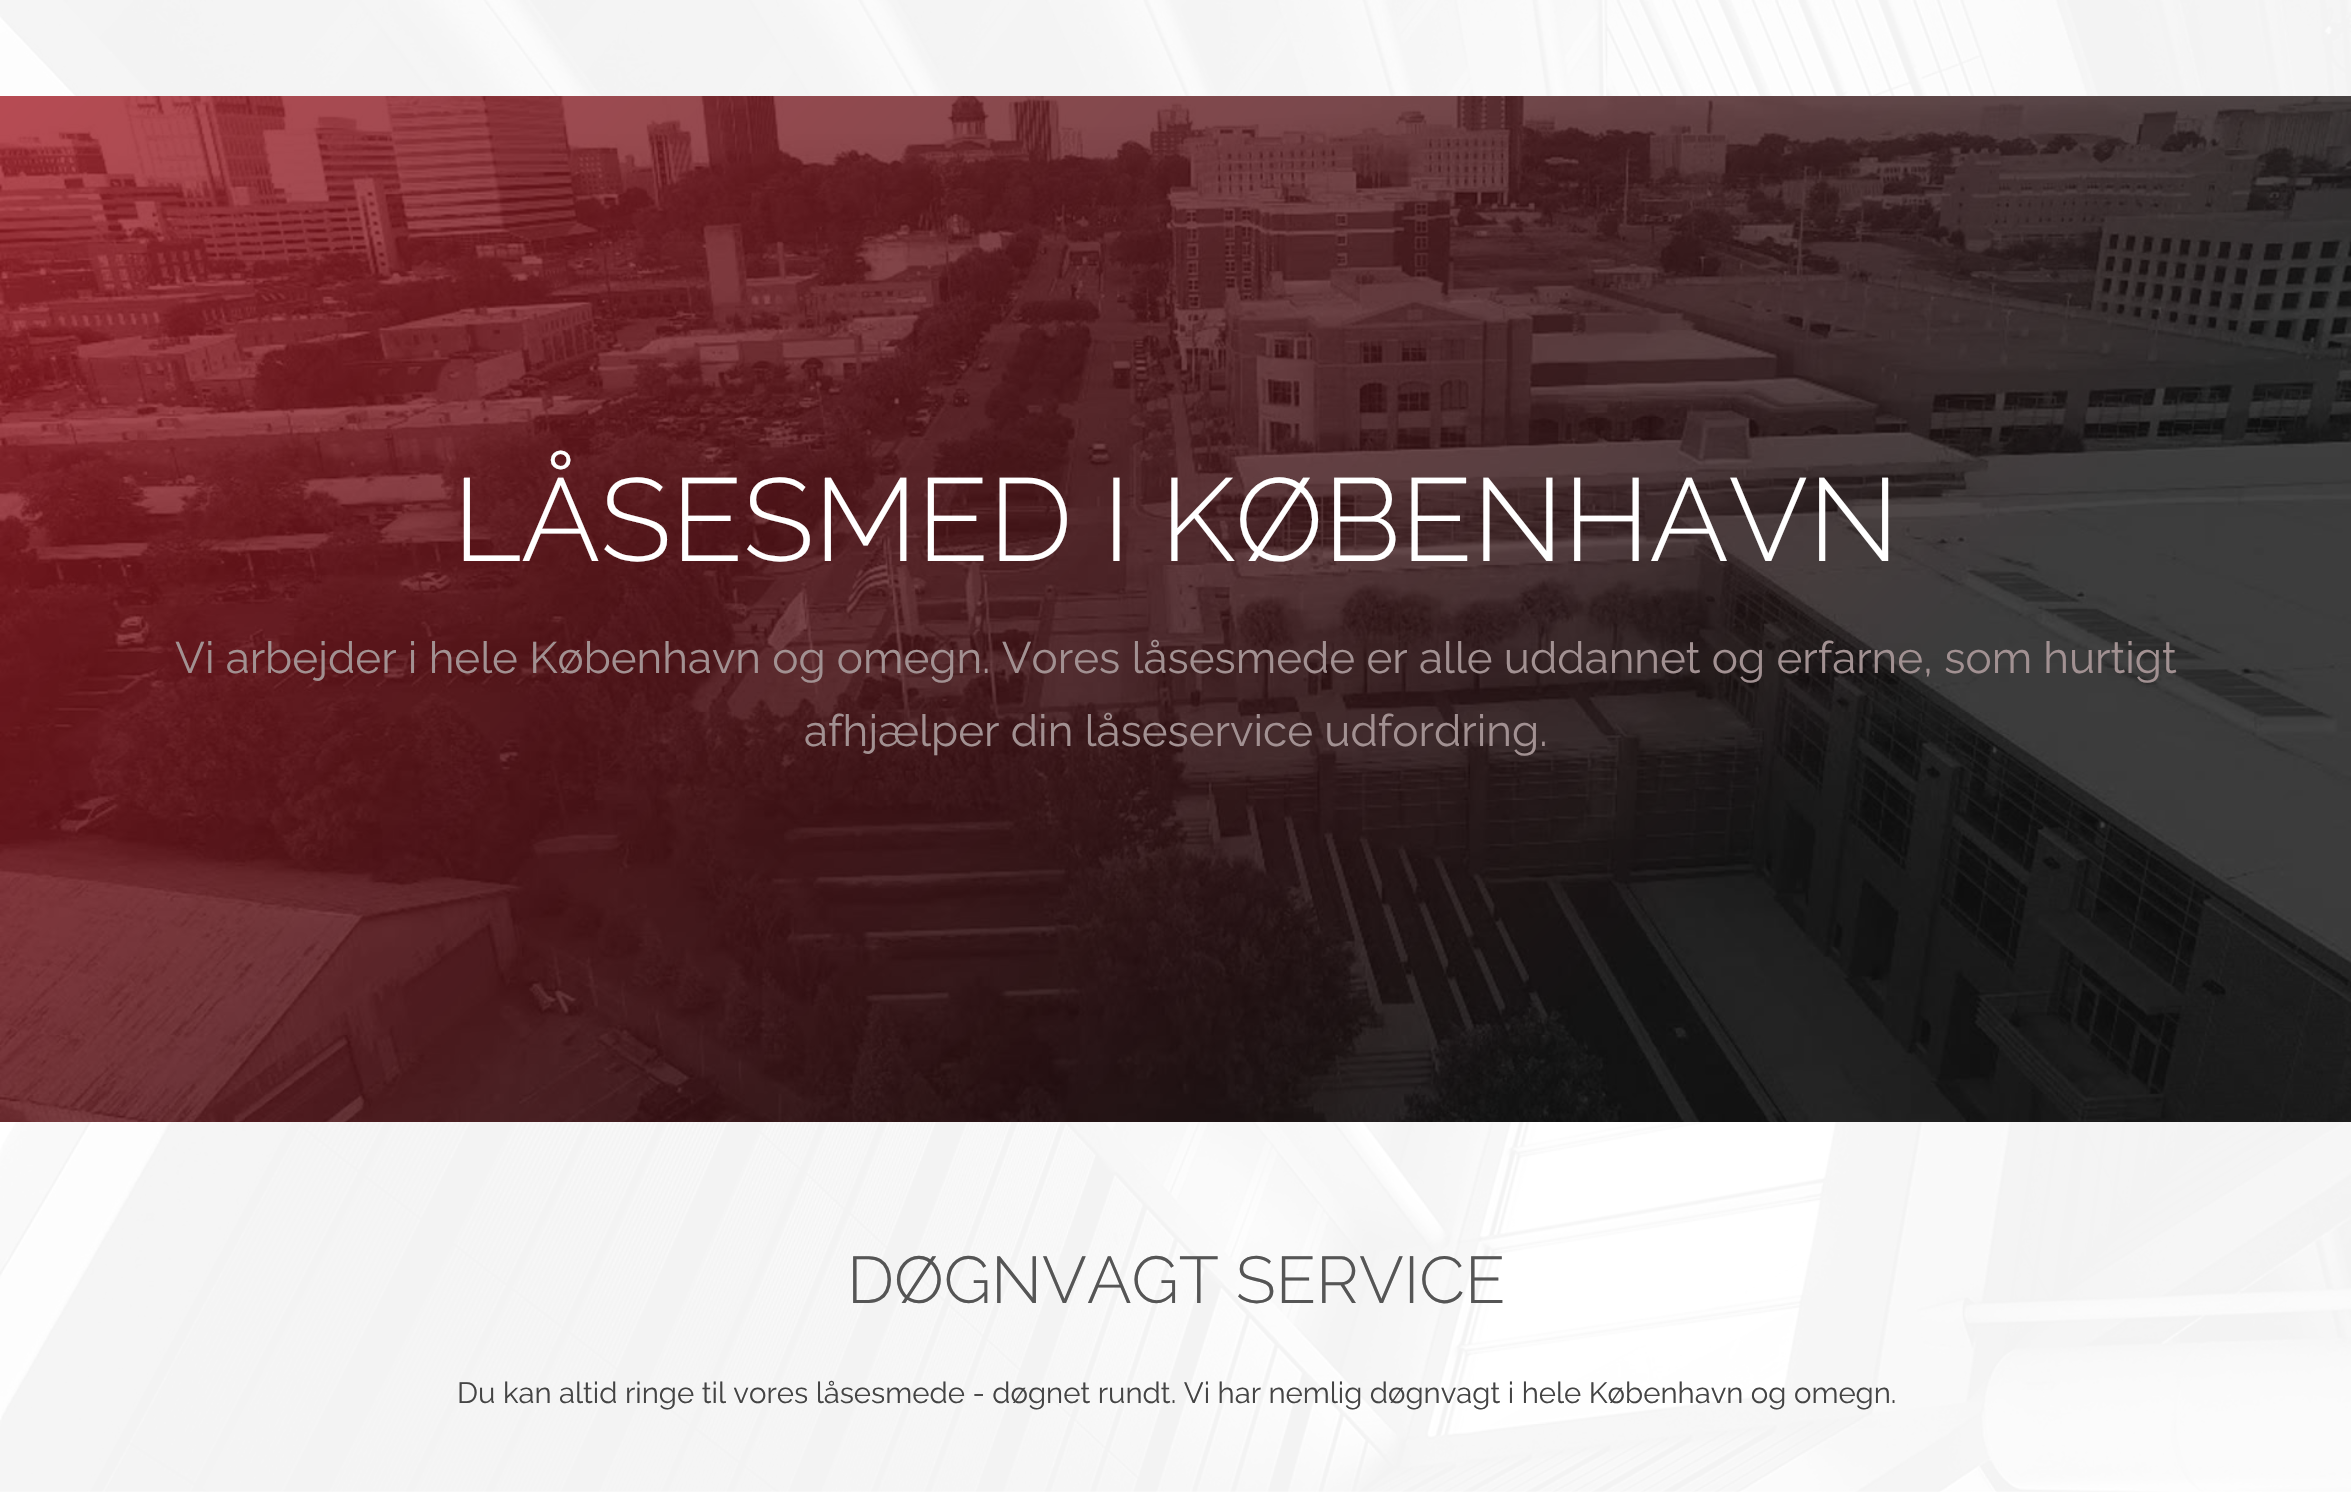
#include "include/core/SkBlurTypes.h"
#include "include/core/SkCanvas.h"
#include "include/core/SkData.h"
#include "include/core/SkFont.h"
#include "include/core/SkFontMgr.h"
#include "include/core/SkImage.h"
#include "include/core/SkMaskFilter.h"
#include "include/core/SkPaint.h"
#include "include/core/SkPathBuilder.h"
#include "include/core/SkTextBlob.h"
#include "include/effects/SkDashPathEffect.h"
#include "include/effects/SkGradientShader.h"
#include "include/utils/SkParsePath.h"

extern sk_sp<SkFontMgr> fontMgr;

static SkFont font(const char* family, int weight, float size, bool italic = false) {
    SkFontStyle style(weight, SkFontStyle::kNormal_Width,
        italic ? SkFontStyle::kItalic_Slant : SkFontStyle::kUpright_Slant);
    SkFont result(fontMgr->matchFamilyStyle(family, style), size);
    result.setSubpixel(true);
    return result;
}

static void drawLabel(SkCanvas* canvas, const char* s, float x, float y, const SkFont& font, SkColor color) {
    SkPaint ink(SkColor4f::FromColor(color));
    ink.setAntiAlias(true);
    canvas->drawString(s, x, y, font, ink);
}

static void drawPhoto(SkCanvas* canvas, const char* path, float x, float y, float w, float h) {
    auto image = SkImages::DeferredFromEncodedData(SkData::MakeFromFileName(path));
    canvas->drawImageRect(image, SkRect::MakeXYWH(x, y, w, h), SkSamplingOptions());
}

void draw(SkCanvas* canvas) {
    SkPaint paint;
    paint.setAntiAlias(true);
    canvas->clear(0xFFFFFFFF);
    drawPhoto(canvas, "assets/img1.png", 0, 0, 2351, 1492);
    drawPhoto(canvas, "assets/img2.png", 0, 96, 2351, 1026);
    SkFont font1 = font("Raleway", 300, 117.25f);
    drawLabel(canvas, "LÅSESMED I KØBENHAVN", 453, 561, font1, 0xFFFFFFFF);
    SkFont font2 = font("Raleway", 400, 44);
    drawLabel(canvas, "Vi arbejder i hele København og omegn. Vores låsesmede er alle uddannet og erfarne, som hurtigt", 175, 673, font2, 0xFFA29192);
    drawLabel(canvas, "afhjælper din låseservice udfordring.", 804, 746, font2, 0xFFA29192);
    SkFont font3 = font("Raleway", 300, 66);
    drawLabel(canvas, "DØGNVAGT SERVICE", 847, 1303, font3, 0xFF555555);
    SkFont font4 = font("Raleway", 400, 29.35f);
    drawLabel(canvas, "Du kan altid ringe til vores låsesmede - døgnet rundt. Vi har nemlig døgnvagt i hele København og omegn.", 457, 1403, font4, 0xFF444444);
}
